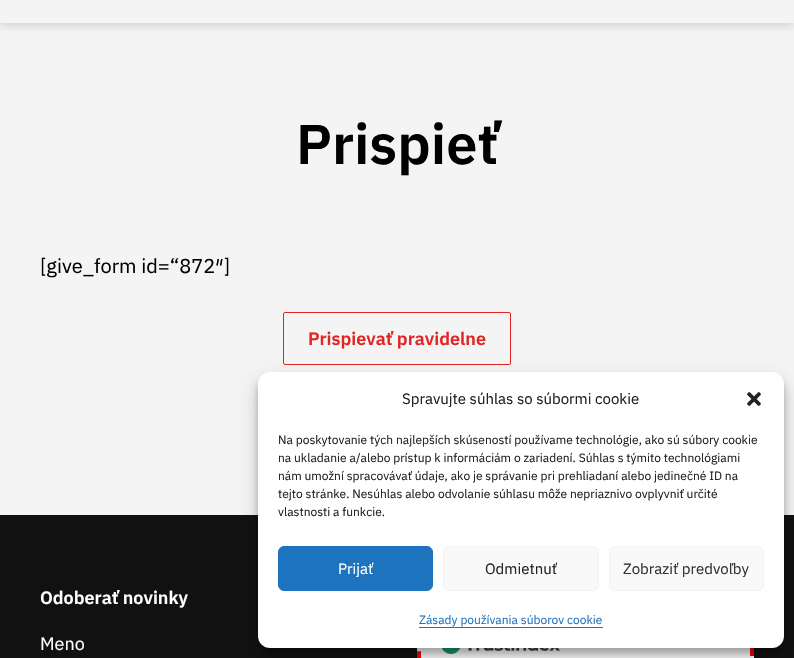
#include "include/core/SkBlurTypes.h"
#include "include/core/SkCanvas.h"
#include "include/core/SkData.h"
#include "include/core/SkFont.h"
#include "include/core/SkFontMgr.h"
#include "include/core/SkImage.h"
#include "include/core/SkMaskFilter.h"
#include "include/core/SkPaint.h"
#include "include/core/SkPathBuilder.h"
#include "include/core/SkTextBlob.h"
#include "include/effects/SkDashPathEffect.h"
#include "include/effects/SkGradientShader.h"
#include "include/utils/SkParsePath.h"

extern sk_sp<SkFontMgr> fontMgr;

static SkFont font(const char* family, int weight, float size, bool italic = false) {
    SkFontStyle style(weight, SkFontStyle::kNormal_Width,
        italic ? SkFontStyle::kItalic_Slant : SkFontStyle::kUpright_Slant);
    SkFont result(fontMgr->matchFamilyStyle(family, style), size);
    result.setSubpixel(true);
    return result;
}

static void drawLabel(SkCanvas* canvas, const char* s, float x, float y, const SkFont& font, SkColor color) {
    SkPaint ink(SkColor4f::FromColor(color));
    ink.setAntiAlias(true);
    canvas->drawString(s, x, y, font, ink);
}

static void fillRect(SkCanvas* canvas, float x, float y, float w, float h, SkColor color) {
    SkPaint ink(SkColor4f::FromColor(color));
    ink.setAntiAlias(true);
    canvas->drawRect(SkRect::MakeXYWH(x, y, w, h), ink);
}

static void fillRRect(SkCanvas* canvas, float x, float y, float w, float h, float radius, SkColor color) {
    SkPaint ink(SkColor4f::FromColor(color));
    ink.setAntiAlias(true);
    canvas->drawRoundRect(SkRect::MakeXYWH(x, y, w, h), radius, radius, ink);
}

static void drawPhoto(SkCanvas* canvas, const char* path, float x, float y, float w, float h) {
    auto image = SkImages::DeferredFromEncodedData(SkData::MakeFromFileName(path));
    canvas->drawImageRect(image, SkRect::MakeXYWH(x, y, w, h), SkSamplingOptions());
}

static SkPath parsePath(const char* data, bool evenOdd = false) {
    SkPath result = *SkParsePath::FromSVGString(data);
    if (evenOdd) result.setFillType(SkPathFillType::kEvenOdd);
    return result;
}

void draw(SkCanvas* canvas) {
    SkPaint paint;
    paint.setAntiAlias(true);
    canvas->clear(0xFFF4F4F4);
    canvas->save();
    canvas->clipRect(SkRect::MakeXYWH(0, 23, 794, 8));
    paint.setColor(0x29000000);
    paint.setMaskFilter(SkMaskFilter::MakeBlur(kNormal_SkBlurStyle, 5));
    canvas->drawRect(SkRect::MakeXYWH(0, -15, 794, 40), paint);
    paint.setMaskFilter(nullptr);
    canvas->restore();
    SkFont font1 = font("IBM Plex Sans", 600, 56);
    drawLabel(canvas, "Prispieť", 296, 164, font1, 0xFF000000);
    SkFont font2 = font("IBM Plex Sans", 400, 20);
    drawLabel(canvas, "[give_form id=“872″]", 40, 273, font2, 0xFF000000);
    paint.setStroke(true);
    paint.setStrokeWidth(1);
    paint.setColor(0xFFE22424);
    canvas->drawRoundRect(SkRect::MakeXYWH(283.5f, 312.5f, 227, 52), 1.5f, 1.5f, paint);
    SkFont font3 = font("IBM Plex Sans", 600, 18);
    drawLabel(canvas, "Prispievať pravidelne", 308, 345, font3, 0xFFE22424);
    fillRect(canvas, 0, 515, 794, 143, 0xFF111111);
    drawLabel(canvas, "Odoberať novinky", 40, 604, font3, 0xFFFFFFFF);
    SkFont font4 = font("IBM Plex Sans", 400, 18);
    drawLabel(canvas, "Meno", 40, 650, font4, 0xFFFFFFFF);
    fillRect(canvas, 417, 648, 337, 10, 0xFFFFFFFF);
    paint.setStrokeWidth(4);
    paint.setColor(0xFFFF0000);
    paint.setPathEffect(SkDashPathEffect::Make({{8, 4}}, 0));
    canvas->drawPath(parsePath("M437 607H734C744 607 752 615 752 625V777C752 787 744 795 734 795H437C427 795 419 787 419 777V625C419 615 427 607 437 607Z"), paint);
    paint.setPathEffect(nullptr);
    drawPhoto(canvas, "assets/img1.png", 442, 648, 118, 6);
    paint.setStroke(false);
    paint.setColor(0x3B000000);
    paint.setMaskFilter(SkMaskFilter::MakeBlur(kNormal_SkBlurStyle, 3));
    canvas->drawRoundRect(SkRect::MakeXYWH(258, 378, 526, 276), 12, 12, paint);
    paint.setMaskFilter(nullptr);
    paint.setColor(0x30000000);
    paint.setMaskFilter(SkMaskFilter::MakeBlur(kNormal_SkBlurStyle, 10));
    canvas->drawRoundRect(SkRect::MakeXYWH(258, 382, 526, 276), 12, 12, paint);
    paint.setMaskFilter(nullptr);
    fillRRect(canvas, 258, 372, 526, 276, 12, 0xFFFFFFFF);
    SkFont font5 = font("IBM Plex Sans", 400, 15);
    drawLabel(canvas, "Spravujte súhlas so súbormi cookie", 402, 404, font5, 0xFF222222);
    drawPhoto(canvas, "assets/img2.png", 747, 392, 14, 14);
    SkFont font6 = font("IBM Plex Sans", 400, 12);
    drawLabel(canvas, "Na poskytovanie tých najlepších skúseností používame technológie, ako sú súbory cookie", 278, 444, font6, 0xFF222222);
    drawLabel(canvas, "na ukladanie a/alebo prístup k informáciám o zariadení. Súhlas s týmito technológiami", 278, 462, font6, 0xFF222222);
    drawLabel(canvas, "nám umožní spracovávať údaje, ako je správanie pri prehliadaní alebo jedinečné ID na", 278, 480, font6, 0xFF222222);
    drawLabel(canvas, "tejto stránke. Nesúhlas alebo odvolanie súhlasu môže nepriaznivo ovplyvniť určité", 278, 498, font6, 0xFF222222);
    drawLabel(canvas, "vlastnosti a funkcie.", 278, 516, font6, 0xFF222222);
    paint.setColor(0xFF1E73BE);
    canvas->drawRoundRect(SkRect::MakeXYWH(278.5f, 546.5f, 154, 44), 5.5f, 5.5f, paint);
    paint.setStroke(true);
    paint.setStrokeWidth(1);
    canvas->drawRoundRect(SkRect::MakeXYWH(278.5f, 546.5f, 154, 44), 5.5f, 5.5f, paint);
    drawLabel(canvas, "Prijať", 338, 574, font5, 0xFFFFFFFF);
    paint.setStroke(false);
    paint.setColor(0xFFF9F9F9);
    canvas->drawRoundRect(SkRect::MakeXYWH(443.5f, 546.5f, 155, 44), 5.5f, 5.5f, paint);
    paint.setStroke(true);
    paint.setColor(0xFFF2F2F2);
    canvas->drawRoundRect(SkRect::MakeXYWH(443.5f, 546.5f, 155, 44), 5.5f, 5.5f, paint);
    drawLabel(canvas, "Odmietnuť", 485, 574, font5, 0xFF222222);
    paint.setStroke(false);
    paint.setColor(0xFFF9F9F9);
    canvas->drawRoundRect(SkRect::MakeXYWH(609.5f, 546.5f, 154, 44), 5.5f, 5.5f, paint);
    paint.setStroke(true);
    paint.setColor(0xFFF2F2F2);
    canvas->drawRoundRect(SkRect::MakeXYWH(609.5f, 546.5f, 154, 44), 5.5f, 5.5f, paint);
    drawLabel(canvas, "Zobraziť predvoľby", 623, 574, font5, 0xFF333333);
    drawLabel(canvas, "Zásady používania súborov cookie", 419, 624, font6, 0xFF1E73BE);
    fillRect(canvas, 419, 627, 184, 1, 0xFF1E73BE);
}
